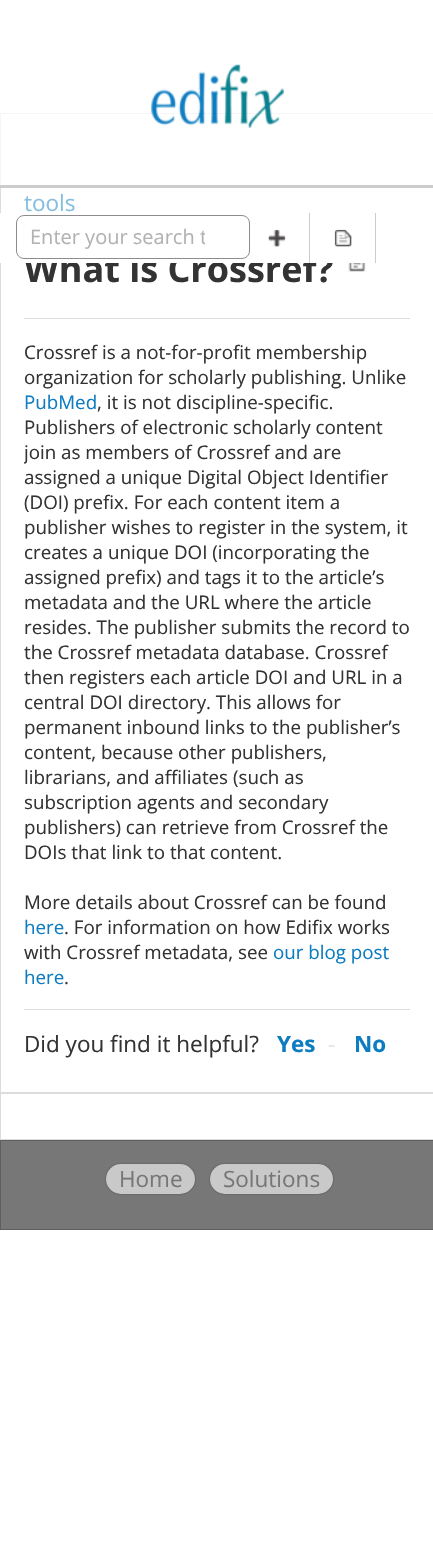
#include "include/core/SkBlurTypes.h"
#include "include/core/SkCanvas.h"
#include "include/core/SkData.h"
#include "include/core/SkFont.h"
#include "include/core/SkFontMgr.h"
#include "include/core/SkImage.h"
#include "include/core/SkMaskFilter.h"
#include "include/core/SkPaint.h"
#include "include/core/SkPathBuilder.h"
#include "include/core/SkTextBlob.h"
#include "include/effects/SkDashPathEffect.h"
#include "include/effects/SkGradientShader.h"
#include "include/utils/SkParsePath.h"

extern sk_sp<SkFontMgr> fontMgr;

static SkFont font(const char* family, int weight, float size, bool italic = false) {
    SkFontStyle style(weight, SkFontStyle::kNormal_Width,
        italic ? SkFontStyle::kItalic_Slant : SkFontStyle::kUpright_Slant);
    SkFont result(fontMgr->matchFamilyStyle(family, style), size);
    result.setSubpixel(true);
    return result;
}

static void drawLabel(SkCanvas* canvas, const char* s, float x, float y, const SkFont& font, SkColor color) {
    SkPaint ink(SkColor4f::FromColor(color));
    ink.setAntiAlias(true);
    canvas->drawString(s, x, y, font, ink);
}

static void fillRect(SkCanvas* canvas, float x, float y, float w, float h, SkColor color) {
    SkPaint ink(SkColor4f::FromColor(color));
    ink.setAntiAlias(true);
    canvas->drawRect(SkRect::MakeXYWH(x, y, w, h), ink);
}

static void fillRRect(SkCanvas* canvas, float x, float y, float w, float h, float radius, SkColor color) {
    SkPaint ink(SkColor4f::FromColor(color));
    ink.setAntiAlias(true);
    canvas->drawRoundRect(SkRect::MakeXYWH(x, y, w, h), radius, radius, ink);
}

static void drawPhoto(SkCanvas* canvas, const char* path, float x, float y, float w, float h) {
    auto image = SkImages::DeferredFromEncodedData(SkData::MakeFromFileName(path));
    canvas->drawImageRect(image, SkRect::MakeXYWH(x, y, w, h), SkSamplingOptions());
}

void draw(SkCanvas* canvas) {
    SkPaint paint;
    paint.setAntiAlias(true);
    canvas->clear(0xFFFFFFFF);
    paint.setStroke(true);
    paint.setStrokeWidth(1);
    paint.setColor(0xFFDCDCDC);
    canvas->drawRect(SkRect::MakeXYWH(0.5f, 113.5f, 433, 979), paint);
    fillRect(canvas, 0, 113, 433, 72, 0xB3FFFFFF);
    fillRect(canvas, 0, 185, 433, 3, 0xFFCCCCCC);
    drawPhoto(canvas, "assets/img1.png", 151, 64, 133, 64);
    SkFont font1 = font("Open Sans", 400, 22.5f);
    drawLabel(canvas, "tools", 24, 211, font1, 0xFF86BEE0);
    SkFont font2 = font("Open Sans", 700, 36);
    drawLabel(canvas, "What is Crossref?", 24, 282, font2, 0xFF333333);
    drawPhoto(canvas, "assets/img2.png", 348, 263, 18, 9);
    fillRect(canvas, 24, 318, 386, 1, 0xFFDCDCDC);
    SkFont font3 = font("Open Sans", 400, 18.75f);
    drawLabel(canvas, "Crossref is a not-for-profit membership", 24, 359, font3, 0xFF333333);
    drawLabel(canvas, "organization for scholarly publishing. Unlike", 24, 384, font3, 0xFF333333);
    drawLabel(canvas, "PubMed", 24, 409, font3, 0xFF0D7CC1);
    drawLabel(canvas, ", it is not discipline-specific.", 97, 409, font3, 0xFF333333);
    drawLabel(canvas, "Publishers of electronic scholarly content", 24, 434, font3, 0xFF333333);
    canvas->save();
    canvas->clipRect(SkRect::MakeXYWH(24, 339, 386, 650));
    drawLabel(canvas, "join as members of Crossref and are", 24, 459, font3, 0xFF333333);
    canvas->restore();
    drawLabel(canvas, "assigned a unique Digital Object Identifier", 24, 484, font3, 0xFF333333);
    drawLabel(canvas, "(DOI) prefix. For each content item a", 24, 509, font3, 0xFF333333);
    drawLabel(canvas, "publisher wishes to register in the system, it", 24, 534, font3, 0xFF333333);
    drawLabel(canvas, "creates a unique DOI (incorporating the", 24, 559, font3, 0xFF333333);
    drawLabel(canvas, "assigned prefix) and tags it to the article’s", 24, 584, font3, 0xFF333333);
    drawLabel(canvas, "metadata and the URL where the article", 24, 609, font3, 0xFF333333);
    drawLabel(canvas, "resides. The publisher submits the record to", 24, 634, font3, 0xFF333333);
    drawLabel(canvas, "the Crossref metadata database. Crossref", 24, 659, font3, 0xFF333333);
    drawLabel(canvas, "then registers each article DOI and URL in a", 24, 684, font3, 0xFF333333);
    drawLabel(canvas, "central DOI directory. This allows for", 24, 709, font3, 0xFF333333);
    drawLabel(canvas, "permanent inbound links to the publisher’s", 24, 734, font3, 0xFF333333);
    drawLabel(canvas, "content, because other publishers,", 24, 759, font3, 0xFF333333);
    drawLabel(canvas, "librarians, and affiliates (such as", 24, 784, font3, 0xFF333333);
    drawLabel(canvas, "subscription agents and secondary", 24, 809, font3, 0xFF333333);
    drawLabel(canvas, "publishers) can retrieve from Crossref the", 24, 834, font3, 0xFF333333);
    drawLabel(canvas, "DOIs that link to that content.", 24, 859, font3, 0xFF333333);
    drawLabel(canvas, "More details about Crossref can be found", 24, 909, font3, 0xFF333333);
    drawLabel(canvas, "here", 24, 934, font3, 0xFF0D7CC1);
    drawLabel(canvas, ". For information on how Edifix works", 64, 934, font3, 0xFF333333);
    drawLabel(canvas, "with Crossref metadata, see", 24, 959, font3, 0xFF333333);
    drawLabel(canvas, "our blog post", 273, 959, font3, 0xFF0D7CC1);
    drawLabel(canvas, "here", 24, 984, font3, 0xFF0D7CC1);
    drawLabel(canvas, ".", 64, 984, font3, 0xFF333333);
    fillRect(canvas, 24, 1009, 386, 1, 0xFFDCDCDC);
    drawLabel(canvas, "Did you find it helpful?", 24, 1052, font1, 0xFF333333);
    SkFont font4 = font("Open Sans", 700, 22.5f);
    drawLabel(canvas, "Yes", 277, 1052, font4, 0xFF0D7CC1);
    drawLabel(canvas, "-", 328, 1052, font1, 0xFFE5E5E5);
    drawLabel(canvas, "No", 354, 1052, font4, 0xFF0D7CC1);
    canvas->drawRect(SkRect::MakeXYWH(0.5f, 1093.5f, 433, 46), paint);
    fillRect(canvas, 0, 213, 333, 50, 0xFFFFFFFF);
    paint.setColor(0xFF8C8C8C);
    canvas->drawRoundRect(SkRect::MakeXYWH(16.5f, 215.5f, 233, 43), 7.5f, 7.5f, paint);
    canvas->save();
    canvas->clipRect(SkRect::MakeXYWH(30, 224, 175, 27));
    SkFont font5 = font("Open Sans", 400, 20);
    drawLabel(canvas, "Enter your search t", 30, 244, font5, 0xFFB2B2B2);
    canvas->restore();
    fillRect(canvas, 309, 213, 1, 50, 0xFFCCCCCC);
    drawPhoto(canvas, "assets/img3.png", 268, 229, 18, 18);
    fillRect(canvas, 375, 213, 1, 50, 0xFFCCCCCC);
    drawPhoto(canvas, "assets/img4.png", 334, 229, 18, 18);
    paint.setStroke(false);
    paint.setColor(0xFF777777);
    canvas->drawRect(SkRect::MakeXYWH(0.5f, 1140.5f, 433, 89), paint);
    paint.setStroke(true);
    paint.setColor(0xFF5E5E5E);
    canvas->drawRect(SkRect::MakeXYWH(0.5f, 1140.5f, 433, 89), paint);
    paint.setStroke(false);
    paint.setColor(0xFF494949);
    paint.setMaskFilter(SkMaskFilter::MakeBlur(kNormal_SkBlurStyle, 1));
    canvas->drawRoundRect(SkRect::MakeXYWH(106, 1164, 89, 30), 15, 15, paint);
    paint.setMaskFilter(nullptr);
    fillRRect(canvas, 106, 1164, 89, 30, 15, 0xFFC9C9C9);
    drawLabel(canvas, "Home", 119, 1187, font1, 0xFF777777);
    paint.setMaskFilter(SkMaskFilter::MakeBlur(kNormal_SkBlurStyle, 1));
    canvas->drawRoundRect(SkRect::MakeXYWH(210, 1164, 123, 30), 15, 15, paint);
    paint.setMaskFilter(nullptr);
    fillRRect(canvas, 210, 1164, 123, 30, 15, 0xFFC9C9C9);
    drawLabel(canvas, "Solutions", 223, 1187, font1, 0xFF777777);
}
